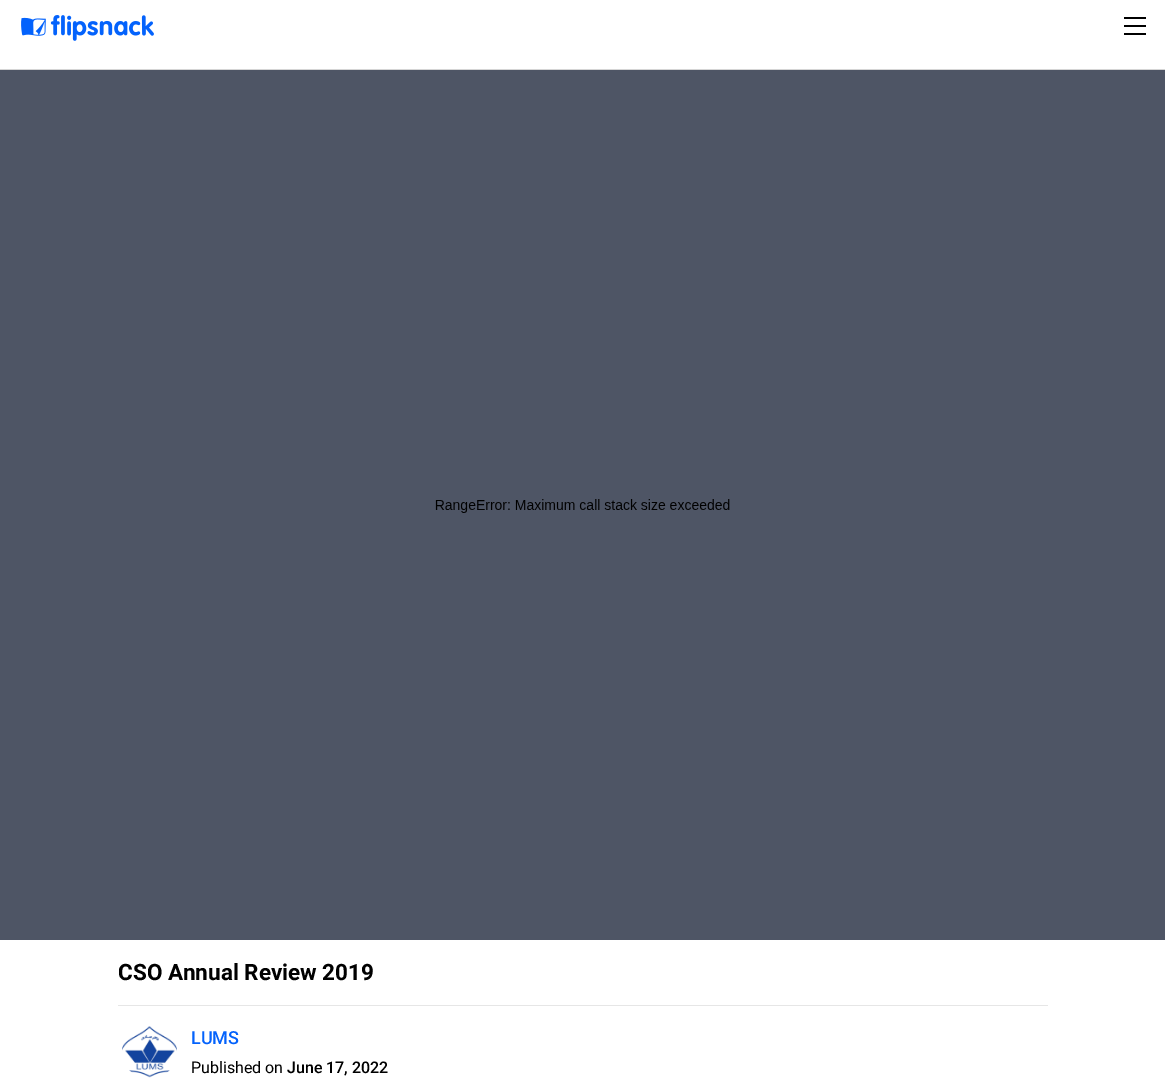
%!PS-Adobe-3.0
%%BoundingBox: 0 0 1165 1084
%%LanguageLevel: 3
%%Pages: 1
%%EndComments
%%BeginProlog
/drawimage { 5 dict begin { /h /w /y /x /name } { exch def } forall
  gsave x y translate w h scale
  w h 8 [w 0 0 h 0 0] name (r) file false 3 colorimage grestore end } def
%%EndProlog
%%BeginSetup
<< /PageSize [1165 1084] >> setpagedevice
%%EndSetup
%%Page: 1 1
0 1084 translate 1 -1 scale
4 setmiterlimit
1 setgray
0 0 1165 1084 rectfill
0.835 setgray
0 69 1165 1 rectfill
(images/1.raw) 21 15 133 26 drawimage
0 setgray
1124 17 22 2 rectfill
1124 25 22 2 rectfill
1124 33 22 2 rectfill
0.306 0.333 0.396 setrgbcolor
0 70 1165 870 rectfill
(images/2.raw) 435 499 295 14 drawimage
0.902 setgray
118 1005 930 1 rectfill
(images/3.raw) 122 1026 55 52 drawimage
/Roboto-Bold [22.5 0 0 -22.5 0 0] selectfont
0 setgray
118 980 moveto (CSO Annual Review 2019) show
/Roboto-Medium [18 0 0 -18 0 0] selectfont
0.012 0.384 0.988 setrgbcolor
191 1044 moveto (LUMS) show
/Roboto-Regular [16 0 0 -16 0 0] selectfont
0 setgray
191 1073 moveto (Published on) show
/Roboto-Medium [16 0 0 -16 0 0] selectfont
287 1073 moveto (June 17, 2022) show
showpage
%%EOF
